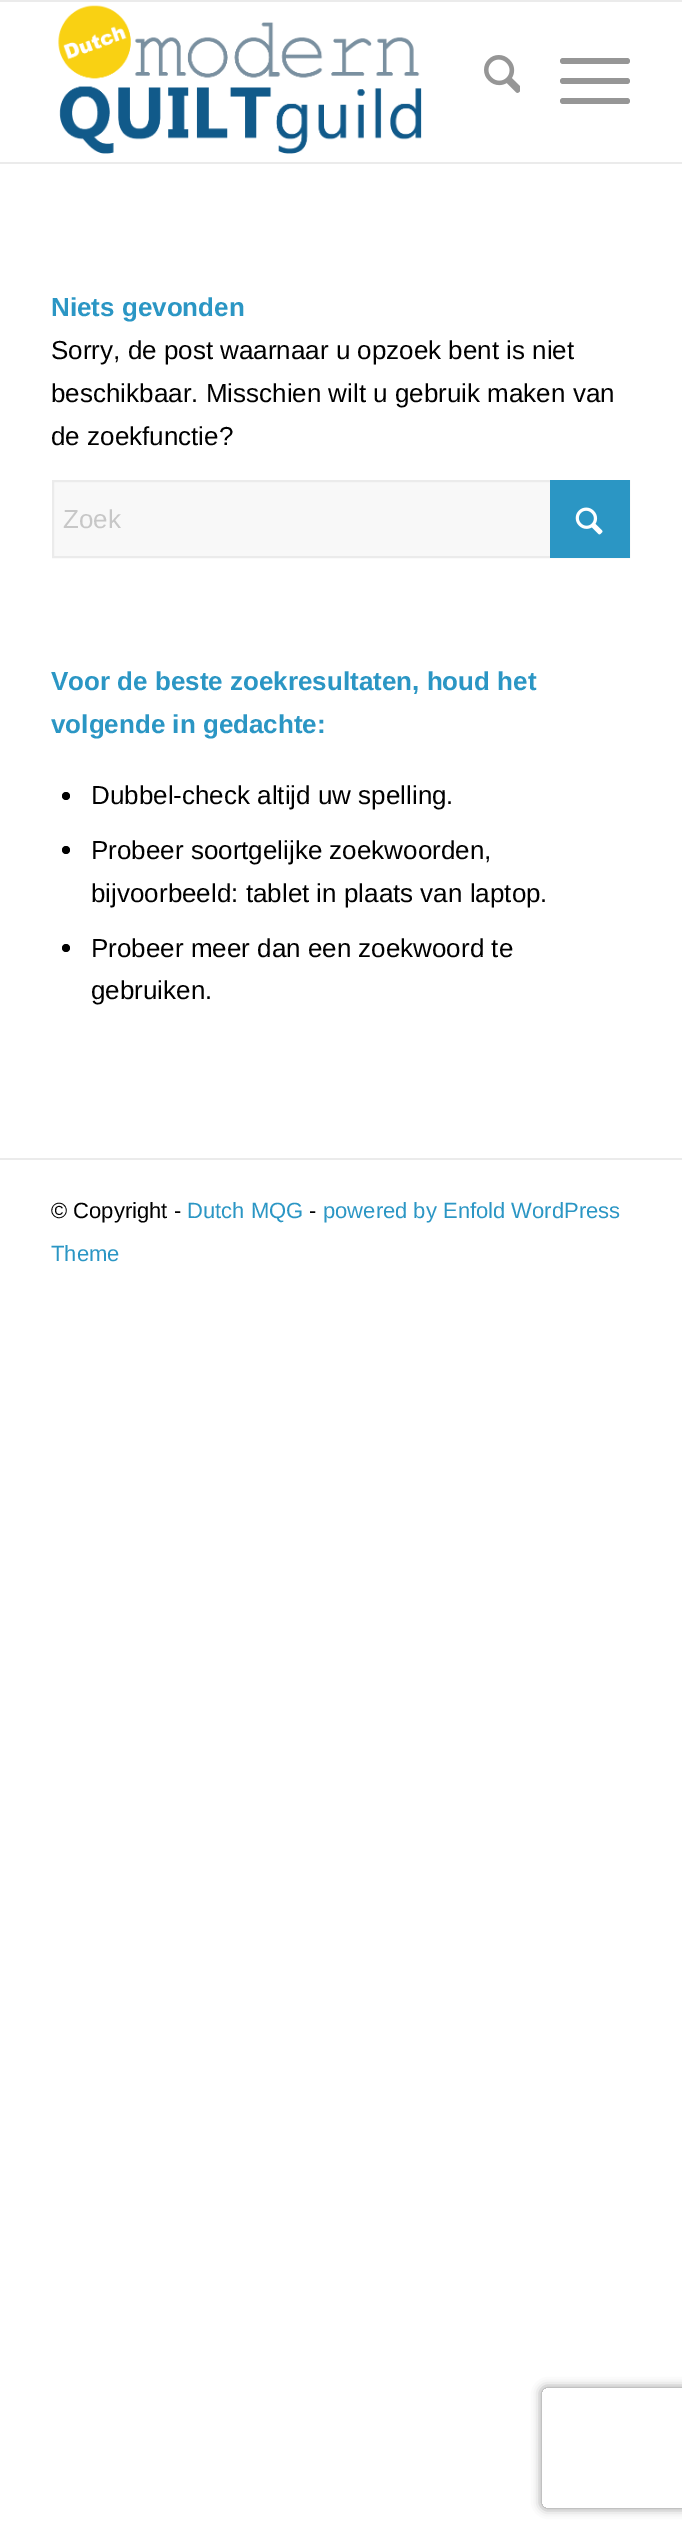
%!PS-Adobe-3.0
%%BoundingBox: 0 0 682 2536
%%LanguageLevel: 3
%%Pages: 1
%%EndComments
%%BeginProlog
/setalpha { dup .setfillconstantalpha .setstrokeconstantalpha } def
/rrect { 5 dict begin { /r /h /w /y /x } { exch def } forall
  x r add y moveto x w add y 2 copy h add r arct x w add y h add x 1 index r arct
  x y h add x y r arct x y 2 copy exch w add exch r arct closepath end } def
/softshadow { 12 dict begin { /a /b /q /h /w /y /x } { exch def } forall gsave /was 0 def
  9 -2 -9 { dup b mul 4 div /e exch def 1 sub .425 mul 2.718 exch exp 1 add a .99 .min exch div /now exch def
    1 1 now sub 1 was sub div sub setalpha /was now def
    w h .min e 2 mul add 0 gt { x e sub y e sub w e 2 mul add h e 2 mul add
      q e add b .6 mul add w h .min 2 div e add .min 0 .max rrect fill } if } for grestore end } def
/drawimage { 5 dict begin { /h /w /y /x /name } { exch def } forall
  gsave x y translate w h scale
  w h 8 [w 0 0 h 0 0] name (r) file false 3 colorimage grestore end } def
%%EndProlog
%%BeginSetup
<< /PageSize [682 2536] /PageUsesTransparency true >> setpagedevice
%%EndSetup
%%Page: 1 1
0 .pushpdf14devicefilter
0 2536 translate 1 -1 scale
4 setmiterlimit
1 setgray
0 0 682 2536 rectfill
0.922 setgray
0 0 682 2 rectfill
0 162 682 2 rectfill
(images/1.raw) 58 5 364 149 drawimage
(images/2.raw) 484 55 36 38 drawimage
0.588 setgray
560 78 70 6 3 rrect fill
560 58 70 6 3 rrect fill
560 98 70 6 3 rrect fill
0.973 setgray
54 482 496 74 rectfill
0.922 setgray
2 setlinewidth
53 481 576 76 rectstroke
0.169 0.588 0.769 setrgbcolor
550 480 80 78 rectfill
(images/3.raw) 575 507 28 28 drawimage
0 setgray
newpath 66 796 4 0 360 arc closepath fill
newpath 66 850 4 0 360 arc closepath fill
newpath 66 948 4 0 360 arc closepath fill
0.922 setgray
0 1158 682 2 rectfill
gsave
newpath 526 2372 moveto 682 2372 lineto 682 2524 lineto 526 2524 lineto closepath 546 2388 moveto 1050 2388 lineto 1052 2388 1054 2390 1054 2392 curveto 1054 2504 lineto 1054 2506 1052 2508 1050 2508 curveto 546 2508 lineto 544 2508 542 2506 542 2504 curveto 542 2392 lineto 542 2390 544 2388 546 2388 curveto closepath eoclip newpath
0.502 setgray
542 2388 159 120 4 5 1 softshadow
grestore
/LiberationSans-Bold [26 0 0 -26 0 0] selectfont
0.169 0.588 0.769 setrgbcolor
51 316 moveto (Niets gevonden) show
/LiberationSans-Regular [26 0 0 -26 0 0] selectfont
0 setgray
51 359 moveto (Sorry, de post waarnaar u opzoek bent is niet) show
51 402 moveto (beschikbaar. Misschien wilt u gebruik maken van) show
51 445 moveto (de zoekfunctie?) show
0.78 setgray
63 528 moveto (Zoek) show
/LiberationSans-Bold [26 0 0 -26 0 0] selectfont
0.169 0.588 0.769 setrgbcolor
51 690 moveto (Voor de beste zoekresultaten, houd het) show
51 733 moveto (volgende in gedachte:) show
/LiberationSans-Regular [26 0 0 -26 0 0] selectfont
0 setgray
91 804 moveto (Dubbel-check altijd uw spelling.) show
91 859 moveto (Probeer soortgelijke zoekwoorden,) show
91 902 moveto (bijvoorbeeld: tablet in plaats van laptop.) show
91 957 moveto (Probeer meer dan een zoekwoord te) show
91 999 moveto (gebruiken.) show
/LiberationSans-Regular [22 0 0 -22 0 0] selectfont
51 1218 moveto (© Copyright -) show
0.169 0.588 0.769 setrgbcolor
187 1218 moveto (Dutch MQG) show
0 setgray
309 1218 moveto (-) show
0.169 0.588 0.769 setrgbcolor
323 1218 moveto (powered by Enfold WordPress) show
51 1261 moveto (Theme) show
.poppdf14devicefilter showpage
%%EOF
